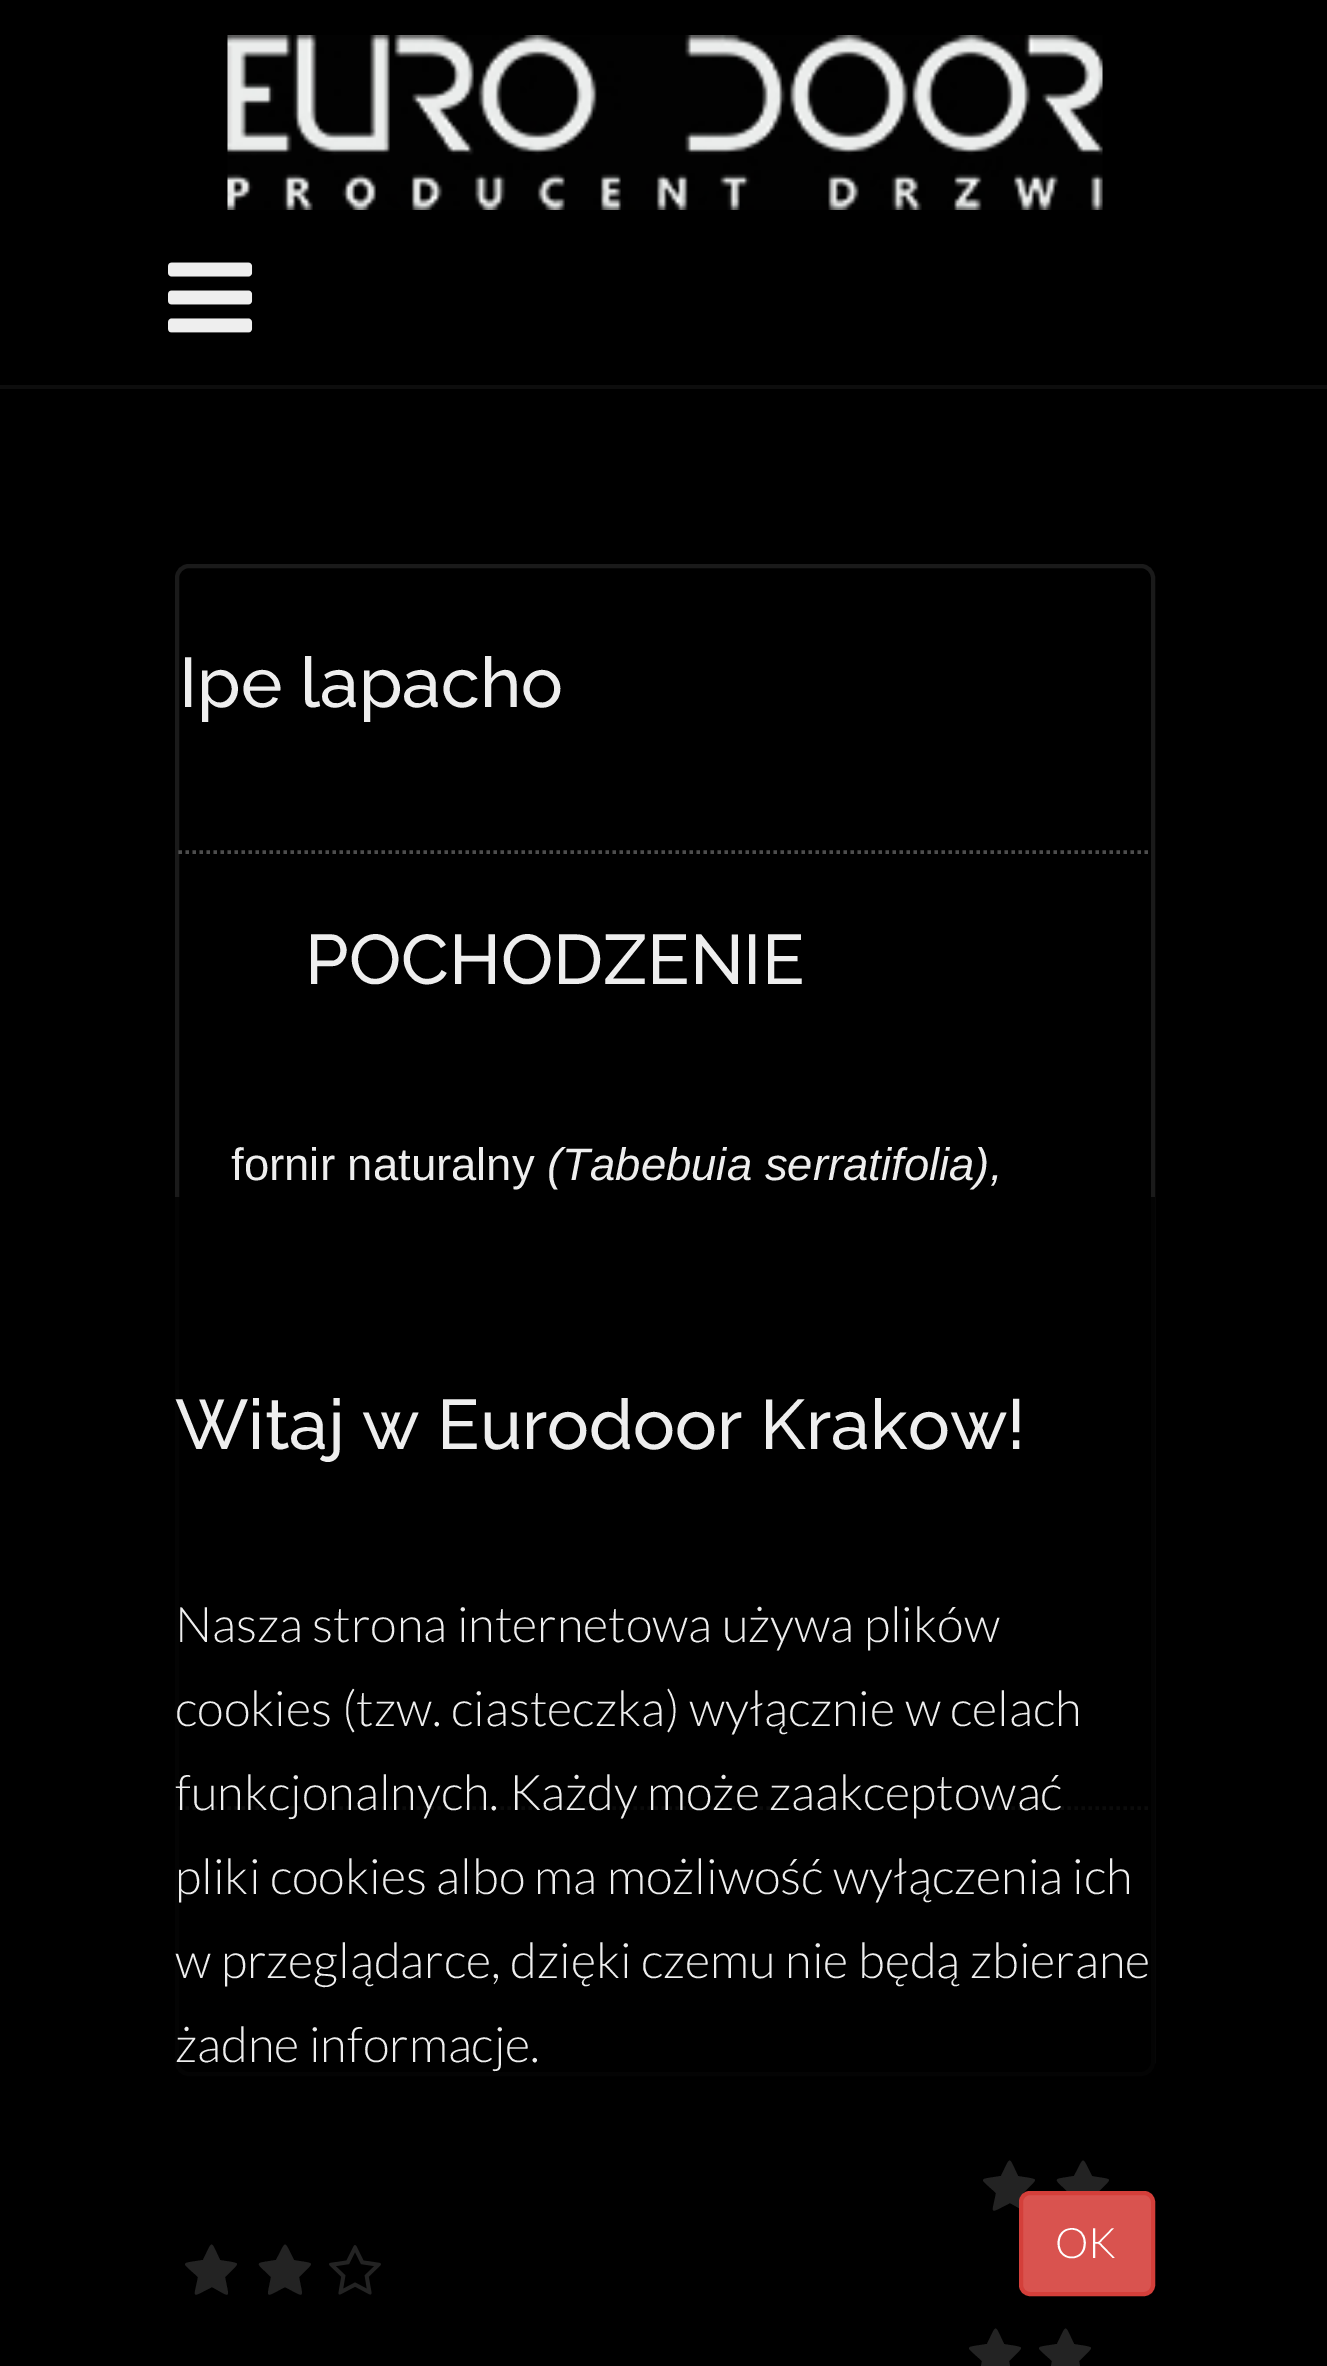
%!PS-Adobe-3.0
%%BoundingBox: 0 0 1327 2366
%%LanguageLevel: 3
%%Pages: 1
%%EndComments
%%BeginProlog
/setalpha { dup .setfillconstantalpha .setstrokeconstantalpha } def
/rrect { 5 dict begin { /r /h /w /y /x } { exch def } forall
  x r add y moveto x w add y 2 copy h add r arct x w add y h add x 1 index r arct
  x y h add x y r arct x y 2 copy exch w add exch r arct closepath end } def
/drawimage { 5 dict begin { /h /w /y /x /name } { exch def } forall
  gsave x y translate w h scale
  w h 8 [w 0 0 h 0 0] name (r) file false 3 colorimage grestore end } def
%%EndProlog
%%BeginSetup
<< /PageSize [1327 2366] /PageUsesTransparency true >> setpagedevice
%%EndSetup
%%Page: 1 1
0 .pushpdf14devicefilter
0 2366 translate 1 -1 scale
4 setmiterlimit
0 setgray
0 0 1327 2366 rectfill
0.051 setgray
0 385 1327 4 rectfill
(images/1.raw) 227 35 876 175 drawimage
(images/2.raw) 168 262 85 71 drawimage
0.102 setgray
4 setlinewidth
177 566 976 1508 12 rrect stroke
0.3 setalpha
1 setgray
3.5 setlinewidth
[3.5 3.5] 0 setdash
newpath 178.5 852 moveto 1151.5 852 lineto stroke
newpath 178.5 1808 moveto 1151.5 1808 lineto stroke
1 setalpha
0.933 setgray
newpath 1035 2180 moveto 1035 2182 1025 2191 1023 2193 curveto 1027 2215 1030 2214 1010 2203 curveto 988 2214 992 2215 996 2193 curveto 979 2177 977 2180 1001 2176 curveto 1011 2156 1008 2155 1018 2176 curveto 1021 2177 1035 2178 1035 2180 curveto closepath fill
newpath 1109 2180 moveto 1109 2182 1099 2191 1097 2193 curveto 1101 2215 1104 2214 1083 2203 curveto 1062 2214 1065 2215 1069 2193 curveto 1053 2177 1051 2180 1074 2176 curveto 1085 2156 1081 2155 1092 2176 curveto 1094 2177 1109 2178 1109 2180 curveto closepath fill
newpath 237 2264 moveto 237 2266 227 2275 225 2277 curveto 229 2299 232 2298 212 2287 curveto 190 2298 194 2299 198 2277 curveto 181 2261 179 2264 203 2260 curveto 213 2240 210 2239 220 2260 curveto 223 2261 237 2262 237 2264 curveto closepath fill
newpath 311 2264 moveto 311 2266 301 2275 299 2277 curveto 303 2299 306 2298 285 2287 curveto 264 2298 267 2299 271 2277 curveto 255 2261 253 2264 276 2260 curveto 287 2240 283 2239 294 2260 curveto 296 2261 311 2262 311 2264 curveto closepath fill
(images/3.raw) 329 2245 52 50 drawimage
newpath 1021 2348 moveto 1021 2350 1011 2359 1009 2361 curveto 1013 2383 1016 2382 996 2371 curveto 974 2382 978 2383 982 2361 curveto 965 2345 963 2348 987 2344 curveto 997 2324 994 2323 1004 2344 curveto 1007 2345 1021 2346 1021 2348 curveto closepath fill
newpath 1091 2348 moveto 1091 2350 1081 2359 1079 2361 curveto 1083 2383 1086 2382 1066 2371 curveto 1044 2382 1048 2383 1052 2361 curveto 1035 2345 1033 2348 1057 2344 curveto 1067 2324 1064 2323 1074 2344 curveto 1077 2345 1091 2346 1091 2348 curveto closepath fill
0.85 setalpha
0 setgray
175 1197 980 1169 rectfill
1 setalpha
0.851 0.325 0.31 setrgbcolor
1021 2193 132 101 9 rrect gsave fill grestore
0.831 0.247 0.227 setrgbcolor
4 setlinewidth
[] 0 setdash
stroke
/Raleway-Medium [70 0 0 -70 0 0] selectfont
0.933 setgray
179 707 moveto (Ipe lapacho) show
305 984 moveto (POCHODZENIE) show
/LiberationSans-Regular [45.5 0 0 -45.5 0 0] selectfont
231 1180 moveto (fornir naturalny) show
/LiberationSans-Italic [45.5 0 0 -45.5 0 0] selectfont
547 1180 moveto (\(Tabebuia serratifolia\),) show
/Raleway-Medium [70 0 0 -70 0 0] selectfont
175 1449 moveto (Witaj w Eurodoor Krakow!) show
/Lato-Light [49 0 0 -49 0 0] selectfont
175 1642 moveto (Nasza strona internetowa używa plików) show
175 1726 moveto (cookies \(tzw. ciasteczka\) wyłącznie w celach) show
175 1810 moveto (funkcjonalnych. Każdy może zaakceptować) show
175 1894 moveto (pliki cookies albo ma możliwość wyłączenia ich) show
175 1978 moveto (w przeglądarce, dzięki czemu nie będą zbierane) show
175 2062 moveto (żadne informacje.) show
/Lato-Light [42 0 0 -42 0 0] selectfont
1 setgray
1055 2258 moveto (OK) show
.poppdf14devicefilter showpage
%%EOF
